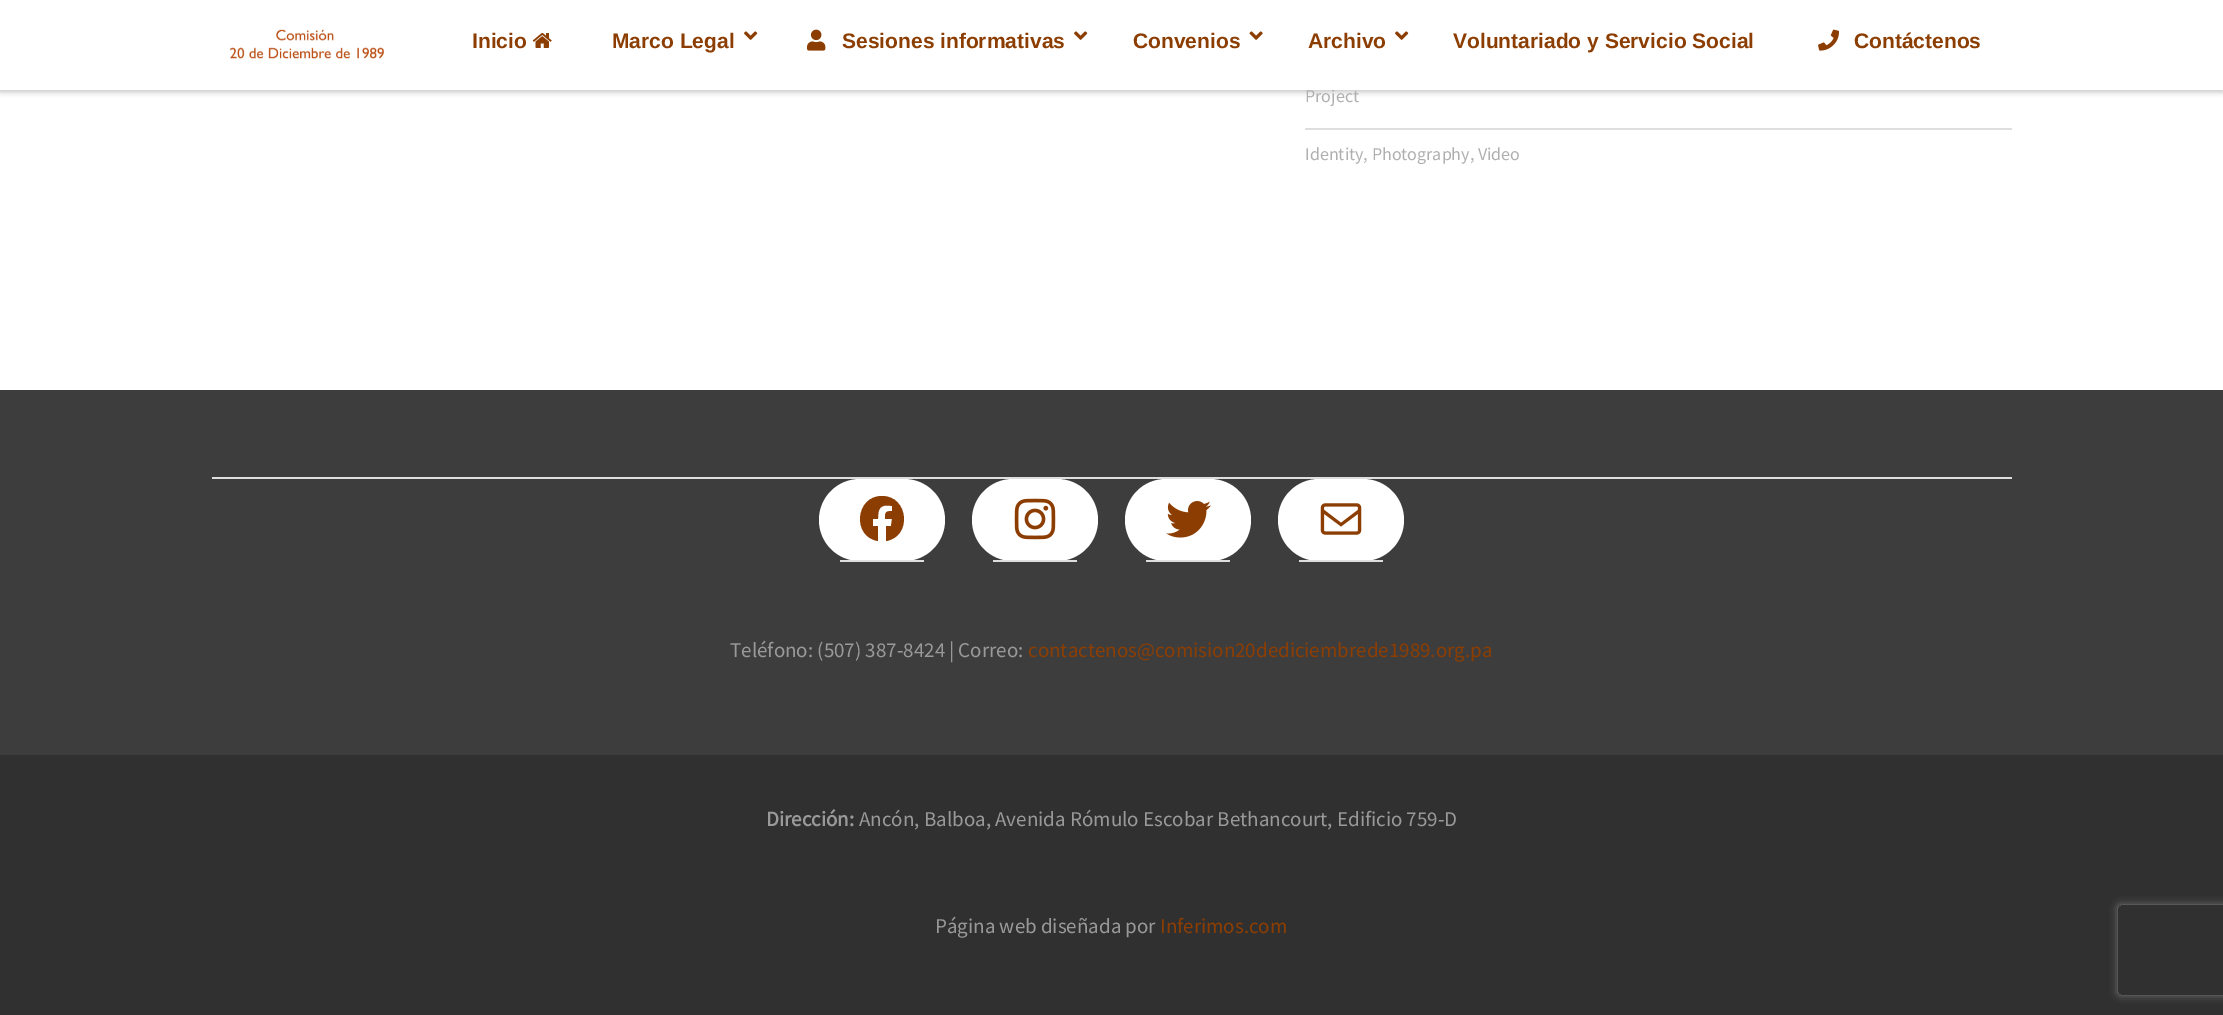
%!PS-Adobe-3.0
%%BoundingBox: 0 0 2223 1015
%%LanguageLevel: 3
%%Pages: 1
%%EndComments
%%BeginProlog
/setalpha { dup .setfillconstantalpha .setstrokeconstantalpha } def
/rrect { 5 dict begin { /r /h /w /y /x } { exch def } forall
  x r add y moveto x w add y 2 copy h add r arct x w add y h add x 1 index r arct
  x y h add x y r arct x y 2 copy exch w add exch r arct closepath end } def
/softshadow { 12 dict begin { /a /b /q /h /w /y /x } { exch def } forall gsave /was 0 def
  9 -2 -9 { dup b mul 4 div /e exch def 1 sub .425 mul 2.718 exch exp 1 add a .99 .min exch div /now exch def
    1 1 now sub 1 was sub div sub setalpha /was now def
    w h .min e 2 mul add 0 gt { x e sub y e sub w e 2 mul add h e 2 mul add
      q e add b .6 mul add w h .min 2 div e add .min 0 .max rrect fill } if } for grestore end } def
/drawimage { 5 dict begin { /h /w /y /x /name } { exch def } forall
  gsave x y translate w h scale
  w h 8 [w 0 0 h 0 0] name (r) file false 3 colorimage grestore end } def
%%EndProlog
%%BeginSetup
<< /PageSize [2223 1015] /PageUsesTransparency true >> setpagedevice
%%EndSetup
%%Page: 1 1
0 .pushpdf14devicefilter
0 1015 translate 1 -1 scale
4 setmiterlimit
1 setgray
0 0 2223 1015 rectfill
0 setgray
0 2 2223 90 0 3 0.24 softshadow
0.871 setgray
1305 128 707 2 rectfill
0.239 setgray
0 390 2223 365 rectfill
0.871 setgray
212 477 1800 2 rectfill
1 setgray
819 479 126 82 41 rrect fill
0.871 setgray
840 560 84 2 rectfill
0.549 0.239 0.008 setrgbcolor
newpath 882 496 moveto 855 496 852 537 878 541 curveto 878 526 lineto 873 526 lineto 873 519 lineto 878 519 lineto 878 508 880 504 892 506 curveto 892 511 lineto 885 511 885 513 885 519 curveto 892 519 lineto 891 526 lineto 886 526 lineto 886 541 lineto 912 537 909 496 882 496 curveto closepath fill
1 setgray
972 479 126 82 41 rrect fill
0.871 setgray
993 560 84 2 rectfill
(images/7.raw) 1014 498 42 42 drawimage
1 setgray
1125 479 126 82 41 rrect fill
0.871 setgray
1146 560 84 2 rectfill
(images/8.raw) 1166 501 45 37 drawimage
1 setgray
1278 479 126 82 41 rrect fill
0.871 setgray
1299 560 84 2 rectfill
(images/9.raw) 1320 503 42 32 drawimage
0.188 setgray
0 755 2223 260 rectfill
gsave
newpath 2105 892 moveto 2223 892 lineto 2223 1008 lineto 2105 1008 lineto closepath 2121 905 moveto 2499 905 lineto 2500.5 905 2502 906.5 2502 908 curveto 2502 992 lineto 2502 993.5 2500.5 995 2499 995 curveto 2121 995 lineto 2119.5 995 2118 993.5 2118 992 curveto 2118 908 lineto 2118 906.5 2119.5 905 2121 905 curveto closepath eoclip newpath
0.502 setgray
2118 905 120 90 3 4 1 softshadow
grestore
/SourceSansPro-Regular [18 0 0 -18 0 0] selectfont
0.686 setgray
1305 102 moveto (Project) show
1 setgray
0 0 2223 90 rectfill
(images/1.raw) 230 29 154 30 drawimage
/LiberationSans-Bold [21 0 0 -21 0 0] selectfont
0.549 0.239 0.008 setrgbcolor
1854 48 moveto (Contáctenos) show
(images/6.raw) 1818 29 21 22 drawimage
1453 48 moveto (Voluntariado y Servicio Social) show
(images/3.raw) 1395 31 14 9 drawimage
1308 48 moveto (Archivo) show
(images/5.raw) 1249 31 14 9 drawimage
1133 48 moveto (Convenios) show
(images/3.raw) 1074 31 14 9 drawimage
842 48 moveto (Sesiones informativas) show
(images/4.raw) 807 29 19 22 drawimage
(images/3.raw) 744 31 14 9 drawimage
612 48 moveto (Marco Legal) show
(images/2.raw) 532 33 20 15 drawimage
472 48 moveto (Inicio) show
/SourceSansPro-Regular [18 0 0 -18 0 0] selectfont
0.686 setgray
1305 160 moveto (Identity, Photography, Video) show
/SourceSansPro-Regular [21 0 0 -21 0 0] selectfont
0.6 setgray
730 657 moveto (Teléfono: \(507\) 387-8424 | Correo:) show
0.549 0.239 0.008 setrgbcolor
1028 657 moveto (contactenos@comision20dediciembrede1989.org.pa) show
/SourceSansPro-Bold [21 0 0 -21 0 0] selectfont
0.6 setgray
766 826 moveto (Dirección:) show
/SourceSansPro-Regular [21 0 0 -21 0 0] selectfont
859 826 moveto (Ancón, Balboa, Avenida Rómulo Escobar Bethancourt, Edificio 759-D) show
935 933 moveto (Página web diseñada por) show
0.549 0.239 0.008 setrgbcolor
1160 933 moveto (Inferimos.com) show
.poppdf14devicefilter showpage
%%EOF
